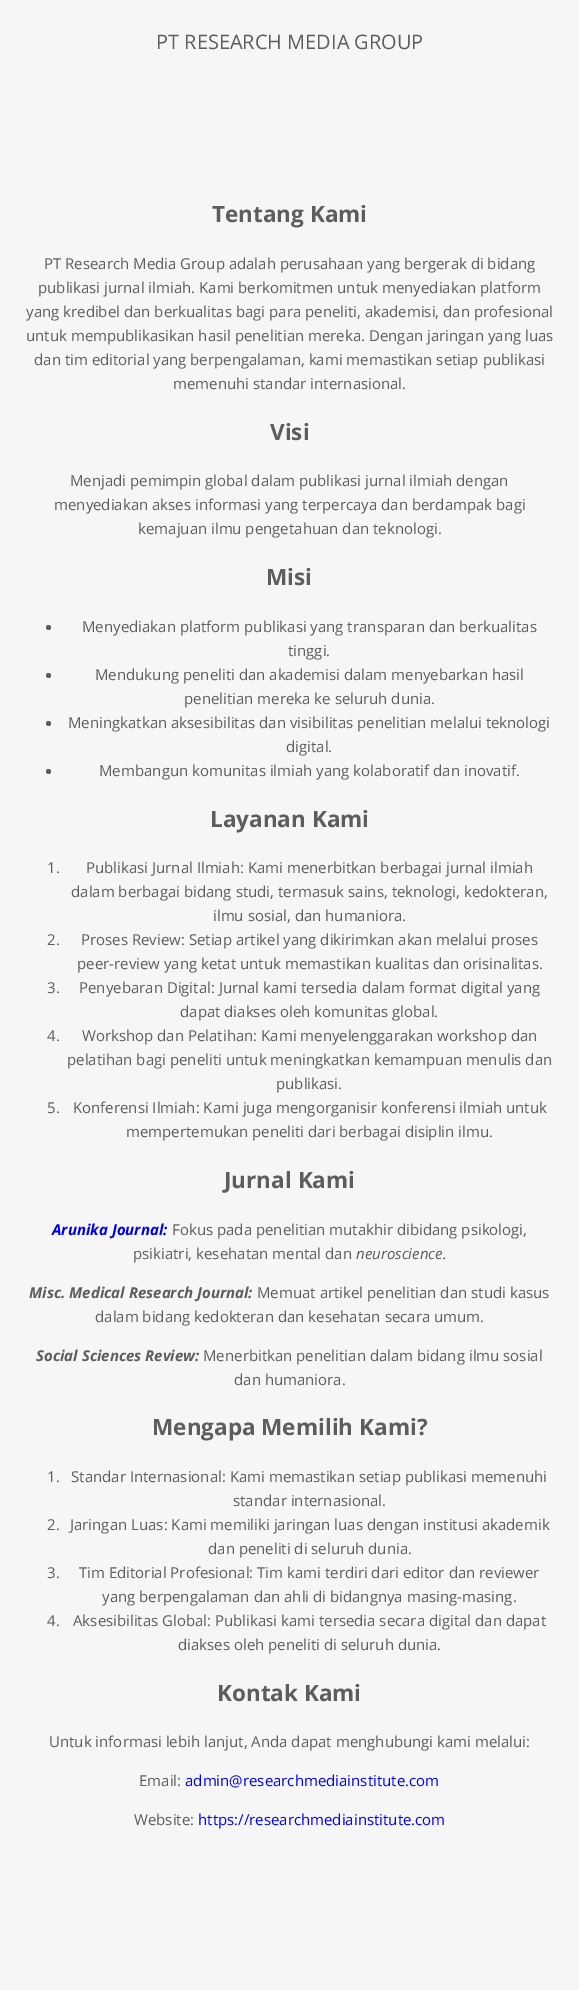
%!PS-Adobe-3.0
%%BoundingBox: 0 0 579 1990
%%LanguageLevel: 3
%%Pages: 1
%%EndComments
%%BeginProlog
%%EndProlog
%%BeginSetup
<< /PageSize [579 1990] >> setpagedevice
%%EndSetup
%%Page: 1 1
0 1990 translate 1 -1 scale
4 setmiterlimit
0.965 setgray
0 0 579 1990 rectfill
0.365 setgray
newpath 48.5 627.5 2.5 0 360 arc closepath fill
newpath 48.5 675.5 2.5 0 360 arc closepath fill
newpath 48.5 723.5 2.5 0 360 arc closepath fill
newpath 48.5 771.5 2.5 0 360 arc closepath fill
/OpenSans-Regular [20 0 0 -20 0 0] selectfont
156 49 moveto (PT RESEARCH MEDIA GROUP) show
/OpenSans-Bold [22.5 0 0 -22.5 0 0] selectfont
212 222 moveto (Tentang Kami) show
/OpenSans-Regular [15 0 0 -15 0 0] selectfont
44 269 moveto (PT Research Media Group adalah perusahaan yang bergerak di bidang) show
38 293 moveto (publikasi jurnal ilmiah. Kami berkomitmen untuk menyediakan platform) show
26 317 moveto (yang kredibel dan berkualitas bagi para peneliti, akademisi, dan profesional) show
26 341 moveto (untuk mempublikasikan hasil penelitian mereka. Dengan jaringan yang luas) show
34 365 moveto (dan tim editorial yang berpengalaman, kami memastikan setiap publikasi) show
173 389 moveto (memenuhi standar internasional.) show
/OpenSans-Bold [22.5 0 0 -22.5 0 0] selectfont
270 440 moveto (Visi) show
/OpenSans-Regular [15 0 0 -15 0 0] selectfont
70 486 moveto (Menjadi pemimpin global dalam publikasi jurnal ilmiah dengan) show
54 510 moveto (menyediakan akses informasi yang terpercaya dan berdampak bagi) show
138 534 moveto (kemajuan ilmu pengetahuan dan teknologi.) show
/OpenSans-Bold [22.5 0 0 -22.5 0 0] selectfont
266 585 moveto (Misi) show
/OpenSans-Regular [15 0 0 -15 0 0] selectfont
82 632 moveto (Menyediakan platform publikasi yang transparan dan berkualitas) show
288 656 moveto (tinggi.) show
95 680 moveto (Mendukung peneliti dan akademisi dalam menyebarkan hasil) show
184 704 moveto (penelitian mereka ke seluruh dunia.) show
68 728 moveto (Meningkatkan aksesibilitas dan visibilitas penelitian melalui teknologi) show
286 752 moveto (digital.) show
99 776 moveto (Membangun komunitas ilmiah yang kolaboratif dan inovatif.) show
/OpenSans-Bold [22.5 0 0 -22.5 0 0] selectfont
210 827 moveto (Layanan Kami) show
/OpenSans-Regular [15 0 0 -15 0 0] selectfont
47 873 moveto (1.) show
86 873 moveto (Publikasi Jurnal Ilmiah: Kami menerbitkan berbagai jurnal ilmiah) show
71 897 moveto (dalam berbagai bidang studi, termasuk sains, teknologi, kedokteran,) show
213 921 moveto (ilmu sosial, dan humaniora.) show
47 945 moveto (2.) show
81 945 moveto (Proses Review: Setiap artikel yang dikirimkan akan melalui proses) show
77 969 moveto (peer-review yang ketat untuk memastikan kualitas dan orisinalitas.) show
47 993 moveto (3.) show
79 993 moveto (Penyebaran Digital: Jurnal kami tersedia dalam format digital yang) show
180 1017 moveto (dapat diakses oleh komunitas global.) show
47 1041 moveto (4.) show
82 1041 moveto (Workshop dan Pelatihan: Kami menyelenggarakan workshop dan) show
67 1065 moveto (pelatihan bagi peneliti untuk meningkatkan kemampuan menulis dan) show
276 1089 moveto (publikasi.) show
47 1113 moveto (5.) show
73 1113 moveto (Konferensi Ilmiah: Kami juga mengorganisir konferensi ilmiah untuk) show
126 1137 moveto (mempertemukan peneliti dari berbagai disiplin ilmu.) show
/OpenSans-Bold [22.5 0 0 -22.5 0 0] selectfont
224 1188 moveto (Jurnal Kami) show
/OpenSans-BoldItalic [15 0 0 -15 0 0] selectfont
0 0 0.933 setrgbcolor
52 1235 moveto (Arunika Journal:) show
/OpenSans-Regular [15 0 0 -15 0 0] selectfont
0.365 setgray
172 1235 moveto (Fokus pada penelitian mutakhir dibidang psikologi,) show
133 1259 moveto (psikiatri, kesehatan mental dan) show
/OpenSans-Italic [15 0 0 -15 0 0] selectfont
356 1259 moveto (neuroscience.) show
/OpenSans-BoldItalic [15 0 0 -15 0 0] selectfont
29 1298 moveto (Misc. Medical Research Journal:) show
/OpenSans-Regular [15 0 0 -15 0 0] selectfont
257 1298 moveto (Memuat artikel penelitian dan studi kasus) show
95 1322 moveto (dalam bidang kedokteran dan kesehatan secara umum.) show
/OpenSans-BoldItalic [15 0 0 -15 0 0] selectfont
36 1361 moveto (Social Sciences Review:) show
/OpenSans-Regular [15 0 0 -15 0 0] selectfont
203 1361 moveto (Menerbitkan penelitian dalam bidang ilmu sosial) show
234 1385 moveto (dan humaniora.) show
/OpenSans-Bold [22.5 0 0 -22.5 0 0] selectfont
152 1435 moveto (Mengapa Memilih Kami?) show
/OpenSans-Regular [15 0 0 -15 0 0] selectfont
47 1482 moveto (1.) show
71 1482 moveto (Standar Internasional: Kami memastikan setiap publikasi memenuhi) show
233 1506 moveto (standar internasional.) show
47 1530 moveto (2.) show
70 1530 moveto (Jaringan Luas: Kami memiliki jaringan luas dengan institusi akademik) show
208 1554 moveto (dan peneliti di seluruh dunia.) show
47 1578 moveto (3.) show
79 1578 moveto (Tim Editorial Profesional: Tim kami terdiri dari editor dan reviewer) show
102 1602 moveto (yang berpengalaman dan ahli di bidangnya masing-masing.) show
47 1626 moveto (4.) show
73 1626 moveto (Aksesibilitas Global: Publikasi kami tersedia secara digital dan dapat) show
178 1650 moveto (diakses oleh peneliti di seluruh dunia.) show
/OpenSans-Bold [22.5 0 0 -22.5 0 0] selectfont
217 1701 moveto (Kontak Kami) show
/OpenSans-Regular [15 0 0 -15 0 0] selectfont
49 1747 moveto (Untuk informasi lebih lanjut, Anda dapat menghubungi kami melalui:) show
139 1786 moveto (Email:) show
0 0 0.933 setrgbcolor
185 1786 moveto (admin@researchmediainstitute.com) show
0.365 setgray
134 1825 moveto (Website:) show
0 0 0.933 setrgbcolor
198 1825 moveto (https://researchmediainstitute.com) show
showpage
%%EOF
